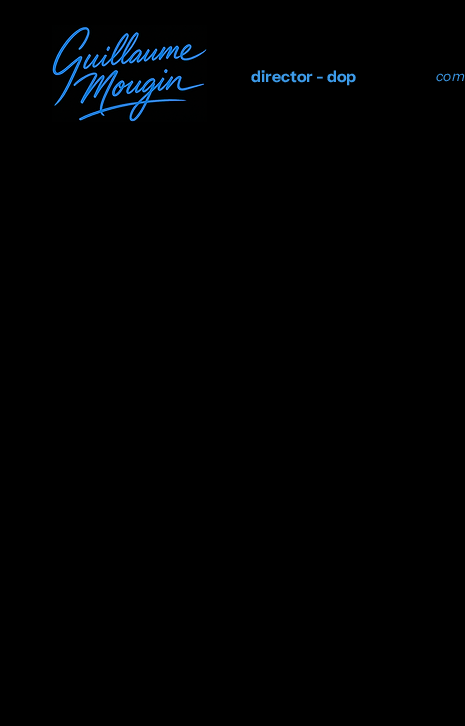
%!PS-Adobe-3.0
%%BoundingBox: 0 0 465 726
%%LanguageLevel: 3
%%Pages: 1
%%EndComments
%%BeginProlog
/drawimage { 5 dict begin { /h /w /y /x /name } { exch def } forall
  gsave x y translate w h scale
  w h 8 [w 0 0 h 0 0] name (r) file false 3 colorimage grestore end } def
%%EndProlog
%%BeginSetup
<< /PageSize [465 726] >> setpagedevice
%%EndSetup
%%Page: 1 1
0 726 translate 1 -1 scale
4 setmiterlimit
0 setgray
0 0 465 726 rectfill
(images/1.raw) 52 25 155 97 drawimage
/InstrumentSans-Bold [16 0 0 -16 0 0] selectfont
0.239 0.608 0.914 setrgbcolor
251 82 moveto (director - dop) show
/InstrumentSans-Italic [14 0 0 -14 0 0] selectfont
436 81 moveto (com) show
showpage
%%EOF
